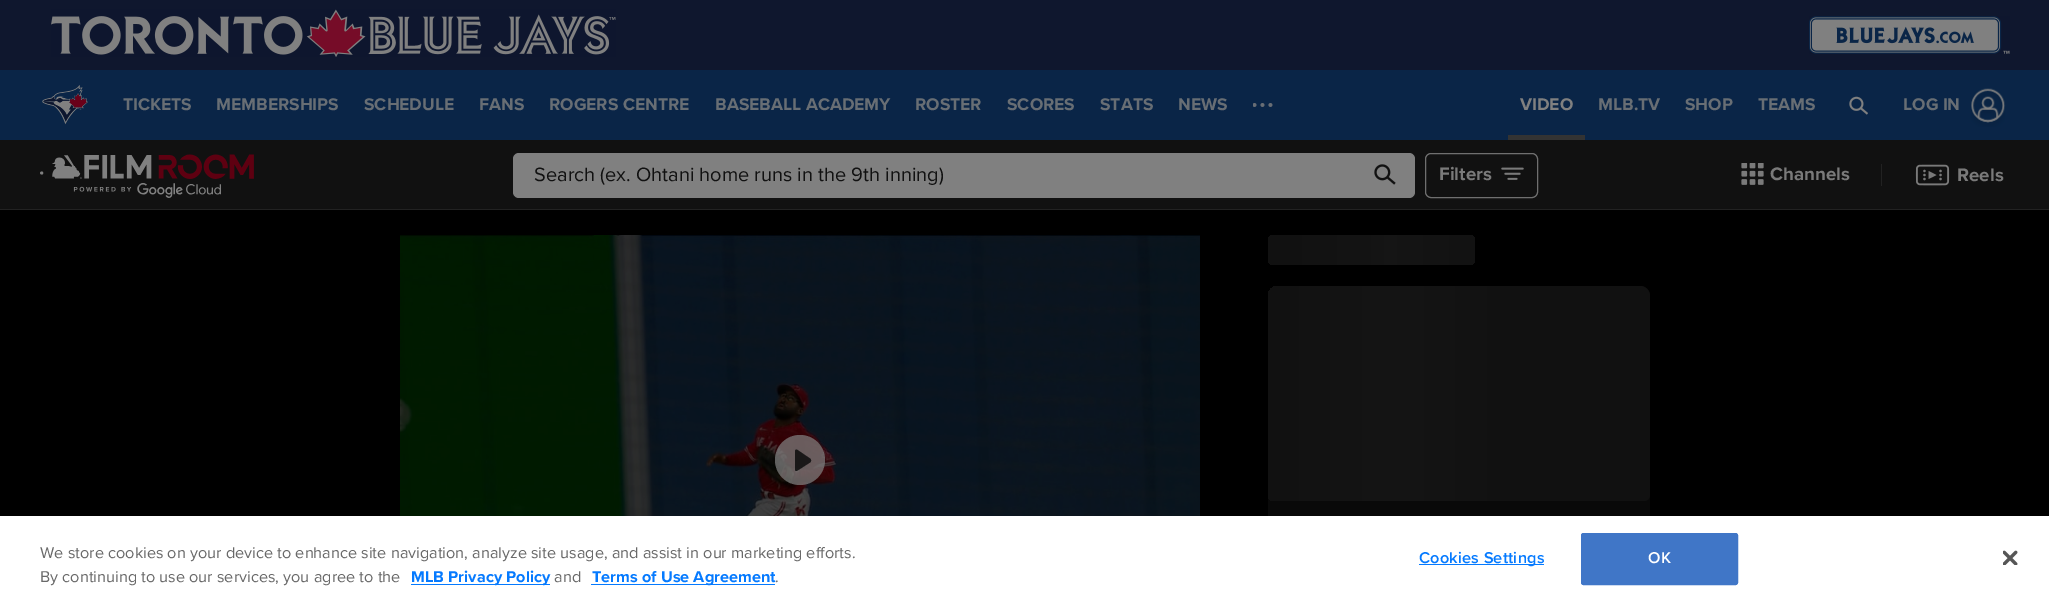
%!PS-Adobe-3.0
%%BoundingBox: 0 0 2049 604
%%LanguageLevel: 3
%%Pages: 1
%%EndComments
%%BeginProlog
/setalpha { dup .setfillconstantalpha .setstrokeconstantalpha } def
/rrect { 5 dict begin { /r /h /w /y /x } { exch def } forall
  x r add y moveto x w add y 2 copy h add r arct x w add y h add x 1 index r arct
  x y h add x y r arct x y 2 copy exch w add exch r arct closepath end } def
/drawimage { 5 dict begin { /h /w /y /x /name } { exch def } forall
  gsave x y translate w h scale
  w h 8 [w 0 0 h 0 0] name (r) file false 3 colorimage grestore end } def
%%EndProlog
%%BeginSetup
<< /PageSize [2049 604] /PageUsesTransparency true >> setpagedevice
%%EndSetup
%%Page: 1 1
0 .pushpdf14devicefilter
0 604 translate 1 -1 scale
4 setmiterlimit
0 setgray
0 0 2049 604 rectfill
0.039 0.145 0.278 setrgbcolor
0 70 2049 70 rectfill
0.059 0.09 0.18 setrgbcolor
0 0 2049 70 rectfill
(images/1.raw) 51 9 565 48 drawimage
(images/2.raw) 1809 16 201 38 drawimage
(images/3.raw) 42 85 46 40 drawimage
(images/4.raw) 1253 103 20 4 drawimage
0.2 setgray
1508 135 77 5 rectfill
(images/5.raw) 1849 96 19 19 drawimage
(images/6.raw) 1971 88 35 39 drawimage
0.067 setgray
0 140 2049 69 rectfill
0.133 setgray
0 209 2049 1 rectfill
(images/7.raw) 40 154 214 44 drawimage
0.502 setgray
513 153 902 45 6 rrect fill
(images/8.raw) 1374 164 22 21 drawimage
0.435 setgray
1425.5 153.5 112 44 5.5 rrect stroke
(images/9.raw) 1501 167 23 13 drawimage
(images/10.raw) 1741 163 23 22 drawimage
0.133 setgray
1881 164 1 22 rectfill
(images/11.raw) 1915 164 35 22 drawimage
(images/12.raw) 400 235 800 281 drawimage
0.72 setalpha
0.502 setgray
newpath 800 460 25 0 360 arc closepath fill
0.9 setalpha
0.067 setgray
newpath 810 458.5 moveto 811.5 459.5 811.5 461.5 810 462.5 curveto 797.5 470.5 lineto 796 471.5 795 471 795 469 curveto 795 451.5 lineto 795 450 796 449 797.5 450 curveto closepath eofill
1 setalpha
gsave 1268 235 207 30 6 rrect clip newpath
<< /ShadingType 2 /ColorSpace /DeviceRGB /Coords [1268 250 1518 250] /Extend [true true] /Function << /FunctionType 3 /Domain [0 1] /Functions [<< /FunctionType 2 /Domain [0 1] /C0 [0.067 0.067 0.067] /C1 [0.082 0.082 0.082] /N 1 >> << /FunctionType 2 /Domain [0 1] /C0 [0.082 0.082 0.082] /C1 [0.067 0.067 0.067] /N 1 >>] /Bounds [0.5] /Encode [0 1 0 1] >> >> shfill grestore
0.035 setgray
1268 286 382 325 10 rrect fill
0.067 setgray
newpath 1278 286 moveto 1640 286 lineto 1645.5 286 1650 290.5 1650 296 curveto 1650 495 lineto 1650 498.5 1647.5 501 1644 501 curveto 1274 501 lineto 1270.5 501 1268 498.5 1268 495 curveto 1268 296 lineto 1268 290.5 1272.5 286 1278 286 curveto closepath fill
gsave
1268 286 382 215 6 rrect clip newpath
gsave newpath 1278 286 moveto 1518 286 lineto 1518 501 lineto 1274 501 lineto 1270.5 501 1268 498.5 1268 495 curveto 1268 296 lineto 1268 290.5 1272.5 286 1278 286 curveto closepath clip newpath
<< /ShadingType 2 /ColorSpace /DeviceRGB /Coords [1268 394 1518 394] /Extend [true true] /Function << /FunctionType 3 /Domain [0 1] /Functions [<< /FunctionType 2 /Domain [0 1] /C0 [0.067 0.067 0.067] /C1 [0.082 0.082 0.082] /N 1 >> << /FunctionType 2 /Domain [0 1] /C0 [0.082 0.082 0.082] /C1 [0.067 0.067 0.067] /N 1 >>] /Bounds [0.5] /Encode [0 1 0 1] >> >> shfill grestore
grestore
1 setgray
0 516 2049 88 rectfill
0.02 0.478 1 setrgbcolor
411 584 139 1 rectfill
591 584 184 1 rectfill
1419 564 125 1 rectfill
0.251 0.463 0.78 setrgbcolor
1581.5 533.5 156 51 2 rrect gsave fill grestore
stroke
(images/13.raw) 2003 550 15 15 drawimage
/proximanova-Bold [17.5 0 0 -17.5 0 0] selectfont
0.408 0.431 0.455 setrgbcolor
123 110 moveto (TICKETS) show
216 110 moveto (MEMBERSHIPS) show
364 110 moveto (SCHEDULE) show
479 110 moveto (FANS) show
549 110 moveto (ROGERS CENTRE) show
715 110 moveto (BASEBALL ACADEMY) show
915 110 moveto (ROSTER) show
1007 110 moveto (SCORES) show
1100 110 moveto (STATS) show
1178 110 moveto (NEWS) show
0.502 setgray
1520 110 moveto (VIDEO) show
0.408 0.431 0.455 setrgbcolor
1598 110 moveto (MLB.TV) show
1685 110 moveto (SHOP) show
1758 110 moveto (TEAMS) show
1903 110 moveto (LOG IN) show
/proximanova-Regular [20 0 0 -20 0 0] selectfont
0.067 setgray
534 181 moveto (Search \(ex. Ohtani home runs in the 9th inning\)) show
/proximanova-Bold [18.75 0 0 -18.75 0 0] selectfont
0.478 setgray
1439 180 moveto (Filters) show
1770 180 moveto (Channels) show
1957 181 moveto (Reels) show
/proximanova-Regular [16.25 0 0 -16.25 0 0] selectfont
0.412 setgray
40 558 moveto (We store cookies on your device to enhance site navigation, analyze site usage, and assist in our marketing efforts.) show
40 582 moveto (By continuing to use our services, you agree to the) show
/proximanova-Bold [16.25 0 0 -16.25 0 0] selectfont
0.02 0.478 1 setrgbcolor
411 582 moveto (MLB Privacy Policy) show
/proximanova-Regular [16.25 0 0 -16.25 0 0] selectfont
0.412 setgray
554 582 moveto (and) show
/proximanova-Bold [16.25 0 0 -16.25 0 0] selectfont
0.02 0.478 1 setrgbcolor
592 582 moveto (Terms of Use Agreement) show
/proximanova-Regular [16.25 0 0 -16.25 0 0] selectfont
0.412 setgray
775 582 moveto (.) show
/ProximaNova-SemiBold [16.25 0 0 -16.25 0 0] selectfont
0.02 0.478 1 setrgbcolor
1419 563 moveto 0.2 0 (Cookies Settings) ashow
1 setgray
1648 563 moveto 0.2 0 (OK) ashow
.poppdf14devicefilter showpage
%%EOF
